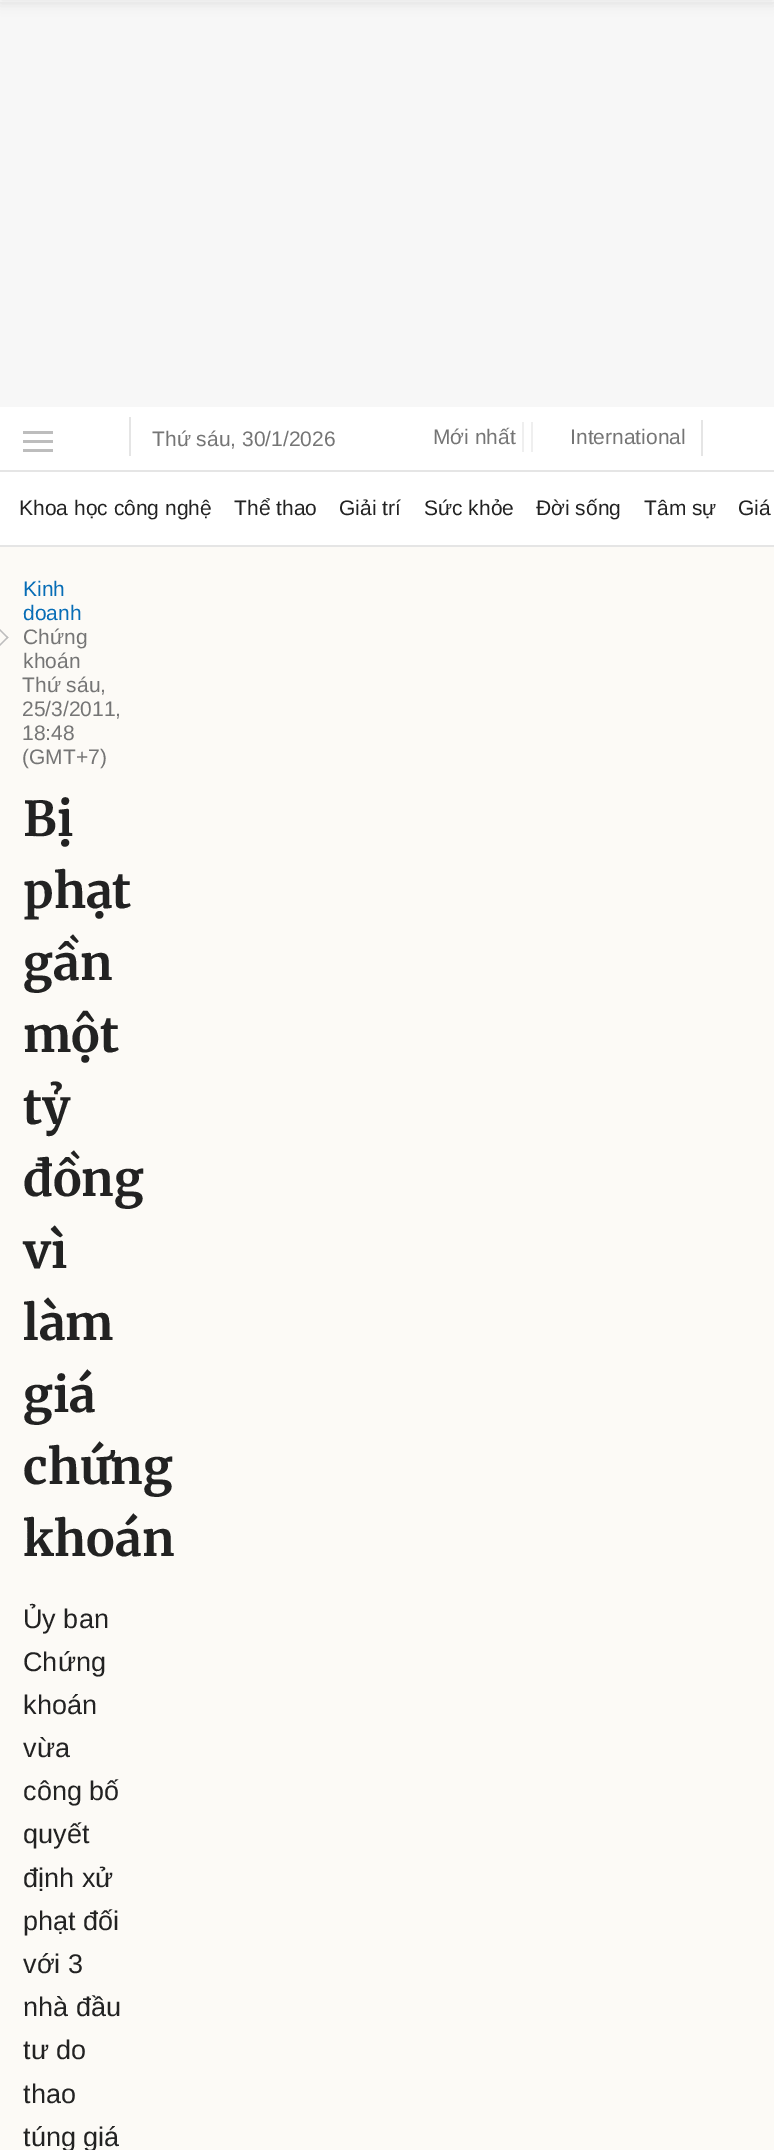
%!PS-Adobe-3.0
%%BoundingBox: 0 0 774 2150
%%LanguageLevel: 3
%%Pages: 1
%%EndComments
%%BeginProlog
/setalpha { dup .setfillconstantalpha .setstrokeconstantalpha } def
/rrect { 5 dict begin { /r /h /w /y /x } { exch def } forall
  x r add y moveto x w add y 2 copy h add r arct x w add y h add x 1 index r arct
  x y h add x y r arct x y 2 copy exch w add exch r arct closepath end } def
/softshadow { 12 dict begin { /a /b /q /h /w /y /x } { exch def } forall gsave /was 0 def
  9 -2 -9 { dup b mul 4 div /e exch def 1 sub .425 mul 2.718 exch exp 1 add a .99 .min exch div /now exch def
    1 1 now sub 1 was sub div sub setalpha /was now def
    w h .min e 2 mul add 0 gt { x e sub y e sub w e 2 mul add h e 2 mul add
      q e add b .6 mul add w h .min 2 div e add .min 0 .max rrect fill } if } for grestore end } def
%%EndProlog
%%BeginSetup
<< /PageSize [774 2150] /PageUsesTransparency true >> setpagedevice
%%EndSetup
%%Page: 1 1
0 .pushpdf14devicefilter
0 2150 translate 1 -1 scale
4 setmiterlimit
1 setgray
0 0 774 2150 rectfill
0.969 setgray
0 2 774 405 rectfill
0.898 setgray
0 470 774 2 rectfill
0.741 setgray
23 431 30 3 rectfill
23 440 30 3 rectfill
23 449 30 3 rectfill
0.898 setgray
129 417 2 39 rectfill
0.937 setgray
531 422 2 30 rectfill
522 422 2 30 rectfill
0.898 setgray
701 420 2 36 rectfill
0 545 774 2 rectfill
0.988 0.98 0.965 setrgbcolor
0 547 774 1603 rectfill
0 setgray
0 -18 774 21 0 6 0.1 softshadow
0.741 setgray
newpath 0 629 moveto 8.5 637.5 lineto 7.5 638.5 lineto -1 630 lineto closepath fill
newpath 7.5 636.5 moveto 8.5 637.5 lineto 0 646 lineto -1 645 lineto closepath fill
/LiberationSans-Regular [21 0 0 -21 0 0] selectfont
0.459 setgray
152 446 moveto (Thứ sáu, 30/1/2026) show
433 444 moveto (Mới nhất) show
570 444 moveto (International) show
0.133 setgray
19 515 moveto (Khoa học công nghệ) show
234 515 moveto (Thể thao) show
339 515 moveto (Giải trí) show
424 515 moveto (Sức khỏe) show
536 515 moveto (Đời sống) show
644 515 moveto (Tâm sự) show
738 515 moveto (Giá) show
0.027 0.427 0.714 setrgbcolor
23 596 moveto (Kinh) show
23 620 moveto (doanh) show
0.459 setgray
23 644 moveto (Chứng) show
23 668 moveto (khoán) show
22 692 moveto (Thứ sáu,) show
22 716 moveto (25/3/2011,) show
22 740 moveto (18:48) show
22 764 moveto (\(GMT+7\)) show
/Merriweather-Bold [48 0 0 -48 0 0] selectfont
0.133 setgray
23 836 moveto (Bị) show
23 908 moveto (phạt) show
23 980 moveto (gần) show
23 1052 moveto (một) show
23 1124 moveto (tỷ) show
23 1196 moveto (đồng) show
23 1268 moveto (vì) show
23 1340 moveto (làm) show
23 1412 moveto (giá) show
23 1484 moveto (chứng) show
23 1556 moveto (khoán) show
/LiberationSans-Regular [27 0 0 -27 0 0] selectfont
23 1628 moveto (Ủy ban) show
23 1671 moveto (Chứng) show
23 1714 moveto (khoán) show
23 1757 moveto (vừa) show
23 1800 moveto (công bố) show
23 1843 moveto (quyết) show
23 1887 moveto (định xử) show
23 1930 moveto (phạt đối) show
23 1973 moveto (với 3) show
23 2016 moveto (nhà đầu) show
23 2059 moveto (tư do) show
23 2103 moveto (thao) show
23 2146 moveto (túng giá) show
.poppdf14devicefilter showpage
%%EOF
